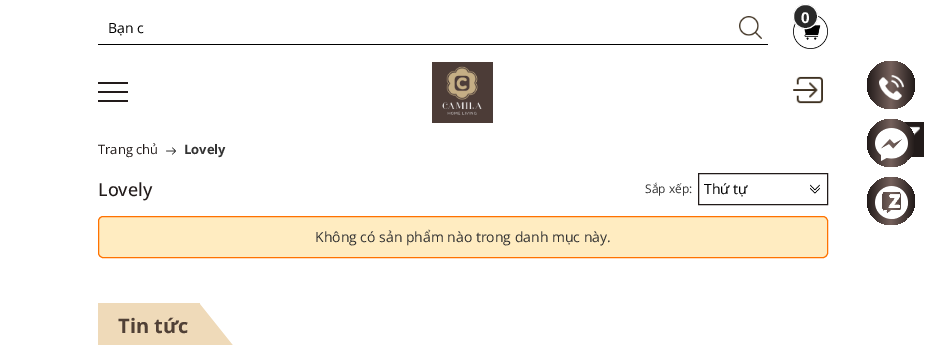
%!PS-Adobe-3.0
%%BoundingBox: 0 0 925 345
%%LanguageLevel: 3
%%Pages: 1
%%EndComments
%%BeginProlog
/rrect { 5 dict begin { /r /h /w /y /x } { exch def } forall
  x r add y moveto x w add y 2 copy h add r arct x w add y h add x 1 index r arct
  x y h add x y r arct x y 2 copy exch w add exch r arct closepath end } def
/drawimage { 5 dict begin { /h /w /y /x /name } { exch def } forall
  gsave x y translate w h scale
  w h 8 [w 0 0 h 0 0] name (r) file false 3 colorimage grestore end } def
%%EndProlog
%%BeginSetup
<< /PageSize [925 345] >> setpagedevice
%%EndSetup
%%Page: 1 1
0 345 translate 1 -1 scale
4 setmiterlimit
1 setgray
0 0 925 345 rectfill
(images/1.raw) 793 15 35 34 drawimage
0.165 setgray
793.5 4.5 24 24 11.5 rrect gsave fill grestore
1 setgray
stroke
0 setgray
98 44 670 1 rectfill
(images/2.raw) 739 16 23 23 drawimage
0.133 0.106 0.102 setrgbcolor
98 82 30 2 rectfill
98 91 30 2 rectfill
98 100 30 2 rectfill
(images/3.raw) 432 62 61 61 drawimage
(images/4.raw) 793 76 30 28 drawimage
(images/5.raw) 166 147 10 8 drawimage
gsave newpath 891 85 24 0 360 arc closepath clip newpath
<< /ShadingType 2 /ColorSpace /DeviceRGB /Coords [867 85 915 85] /Extend [true true] /Function << /FunctionType 3 /Domain [0 1] /Functions [<< /FunctionType 2 /Domain [0 1] /C0 [0.133 0.106 0.102] /C1 [0.459 0.38 0.361] /N 1 >> << /FunctionType 2 /Domain [0 1] /C0 [0.459 0.38 0.361] /C1 [0.133 0.106 0.102] /N 1 >>] /Bounds [0.5] /Encode [0 1 0 1] >> >> shfill grestore
(images/6.raw) 879 75 25 25 drawimage
902 122 22 35 rectfill
(images/9.raw) 908 126 12 10 drawimage
gsave newpath 891 143 24 0 360 arc closepath clip newpath
<< /ShadingType 2 /ColorSpace /DeviceRGB /Coords [867 143 915 143] /Extend [true true] /Function << /FunctionType 3 /Domain [0 1] /Functions [<< /FunctionType 2 /Domain [0 1] /C0 [0.133 0.106 0.102] /C1 [0.459 0.38 0.361] /N 1 >> << /FunctionType 2 /Domain [0 1] /C0 [0.459 0.38 0.361] /C1 [0.133 0.106 0.102] /N 1 >>] /Bounds [0.5] /Encode [0 1 0 1] >> >> shfill grestore
(images/7.raw) 875 128 33 33 drawimage
gsave newpath 891 201 24 0 360 arc closepath clip newpath
<< /ShadingType 2 /ColorSpace /DeviceRGB /Coords [867 201 915 201] /Extend [true true] /Function << /FunctionType 3 /Domain [0 1] /Functions [<< /FunctionType 2 /Domain [0 1] /C0 [0.133 0.106 0.102] /C1 [0.459 0.38 0.361] /N 1 >> << /FunctionType 2 /Domain [0 1] /C0 [0.459 0.38 0.361] /C1 [0.133 0.106 0.102] /N 1 >>] /Bounds [0.5] /Encode [0 1 0 1] >> >> shfill grestore
(images/8.raw) 875 186 33 33 drawimage
698.5 173.5 129 31 rectstroke
(images/10.raw) 810 184 10 10 drawimage
1 0.925 0.757 setrgbcolor
98.5 216.5 729 41 4.5 rrect gsave fill grestore
1 0.447 0 setrgbcolor
stroke
0.937 0.855 0.725 setrgbcolor
98 303 102 42 rectfill
newpath 199 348 moveto 199 303 lineto 235 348 lineto closepath fill
/OpenSans-Bold [15 0 0 -15 0 0] selectfont
1 setgray
801 23 moveto (0) show
/OpenSans-Regular [14 0 0 -14 0 0] selectfont
0 setgray
108 33 moveto (Bạn c) show
/OpenSans-Regular [13 0 0 -13 0 0] selectfont
0.133 0.106 0.102 setrgbcolor
98 154 moveto (Trang chủ) show
/OpenSans-Bold [13 0 0 -13 0 0] selectfont
0.2 setgray
184 154 moveto (Lovely) show
/OpenSans-Medium [18 0 0 -18 0 0] selectfont
0.133 0.106 0.102 setrgbcolor
98 196 moveto (Lovely) show
/OpenSans-Regular [12 0 0 -12 0 0] selectfont
0.2 setgray
645 193 moveto (Sắp xếp:) show
/OpenSans-Regular [14 0 0 -14 0 0] selectfont
0 setgray
704 194 moveto (Thứ tự) show
0.2 setgray
315 242 moveto (Không có sản phẩm nào trong danh mục này.) show
/OpenSans-Bold [20 0 0 -20 0 0] selectfont
0.314 0.251 0.212 setrgbcolor
118 333 moveto (Tin tức) show
showpage
%%EOF
